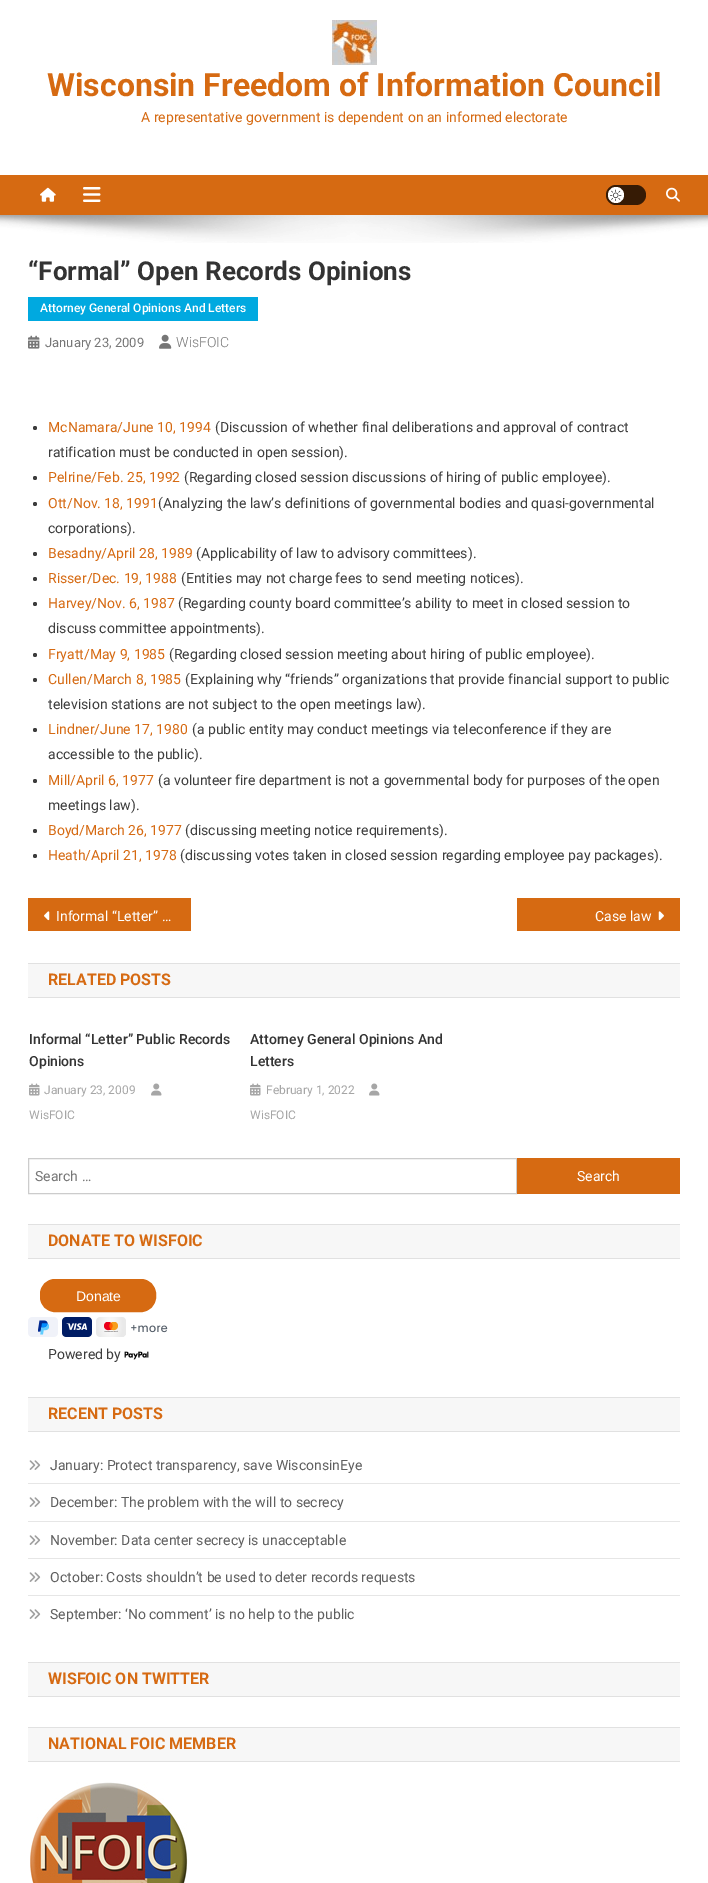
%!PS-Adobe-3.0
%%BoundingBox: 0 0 708 1883
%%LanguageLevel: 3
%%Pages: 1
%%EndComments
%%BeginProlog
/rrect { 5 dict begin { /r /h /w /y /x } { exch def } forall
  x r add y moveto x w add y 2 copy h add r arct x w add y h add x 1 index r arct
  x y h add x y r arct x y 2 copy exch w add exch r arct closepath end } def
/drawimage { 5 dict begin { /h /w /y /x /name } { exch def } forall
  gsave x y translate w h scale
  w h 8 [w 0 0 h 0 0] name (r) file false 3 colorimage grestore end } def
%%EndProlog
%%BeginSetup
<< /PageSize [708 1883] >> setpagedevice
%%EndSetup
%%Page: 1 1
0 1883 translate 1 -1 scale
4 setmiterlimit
1 setgray
0 0 708 1883 rectfill
(images/1.raw) 332 20 45 45 drawimage
0.839 0.416 0.071 setrgbcolor
0 175 708 40 rectfill
(images/2.raw) 40 187 16 15 drawimage
(images/3.raw) 83 187 18 15 drawimage
0.212 0.106 0.02 setrgbcolor
606 185 40 20 10 rrect fill
1 setgray
newpath 616 195 8 0 360 arc closepath fill
(images/4.raw) 610 189 12 12 drawimage
(images/5.raw) 666 187 14 15 drawimage
(images/6.raw) 0 215 708 28 drawimage
0 0.663 0.878 setrgbcolor
28 297 230 24 rectfill
(images/7.raw) 28 335 12 14 drawimage
(images/8.raw) 159 334 13 15 drawimage
0.239 setgray
newpath 35 428 2 0 360 arc closepath fill
newpath 35 478 2 0 360 arc closepath fill
newpath 35 504 2 0 360 arc closepath fill
newpath 35 554 2 0 360 arc closepath fill
newpath 35 579 2 0 360 arc closepath fill
newpath 35 604 2 0 360 arc closepath fill
newpath 35 655 2 0 360 arc closepath fill
newpath 35 680 2 0 360 arc closepath fill
newpath 35 730 2 0 360 arc closepath fill
newpath 35 781 2 0 360 arc closepath fill
newpath 35 831 2 0 360 arc closepath fill
newpath 35 856 2 0 360 arc closepath fill
0.839 0.416 0.071 setrgbcolor
28 898 163 33 rectfill
(images/9.raw) 44 911 6 10 drawimage
517 898 163 33 rectfill
(images/10.raw) 658 911 6 10 drawimage
0.969 setgray
28 964 652 33 rectfill
0.882 setgray
28 963 652 1 rectfill
28 997 652 1 rectfill
(images/11.raw) 29 1083 11 13 drawimage
(images/12.raw) 151 1083 11 13 drawimage
(images/11.raw) 250 1083 11 13 drawimage
(images/12.raw) 369 1083 11 13 drawimage
0.8 setgray
28.5 1158.5 488 35 rectstroke
0.839 0.416 0.071 setrgbcolor
517 1158 163 36 rectfill
0.969 setgray
28 1225 652 33 rectfill
0.882 setgray
28 1224 652 1 rectfill
28 1258 652 1 rectfill
0.839 0.416 0.071 setrgbcolor
40.5 1279.5 115 32 14.5 rrect gsave fill grestore
stroke
(images/13.raw) 28 1317 140 20 drawimage
(images/14.raw) 124 1351 25 9 drawimage
0.969 setgray
28 1398 652 33 rectfill
0.882 setgray
28 1397 652 1 rectfill
28 1431 652 1 rectfill
0.902 setgray
28 1483 652 1 rectfill
(images/15.raw) 29 1460 12 10 drawimage
28 1521 652 1 rectfill
(images/15.raw) 29 1497 12 10 drawimage
28 1558 652 1 rectfill
(images/15.raw) 29 1535 12 10 drawimage
28 1595 652 1 rectfill
(images/15.raw) 29 1572 12 10 drawimage
(images/15.raw) 29 1609 12 10 drawimage
0.969 setgray
28 1663 652 33 rectfill
0.882 setgray
28 1662 652 1 rectfill
28 1696 652 1 rectfill
0.969 setgray
28 1728 652 33 rectfill
0.882 setgray
28 1727 652 1 rectfill
28 1761 652 1 rectfill
(images/16.raw) 30 1782 158 101 drawimage
/Roboto-Bold [32 0 0 -32 0 0] selectfont
0.839 0.416 0.071 setrgbcolor
47 96 moveto (Wisconsin Freedom of Information Council) show
/Roboto-Regular [14 0 0 -14 0 0] selectfont
141 122 moveto (A representative government is dependent on an informed electorate) show
/Roboto-Bold [26 0 0 -26 0 0] selectfont
0.2 setgray
28 280 moveto (“Formal” Open Records Opinions) show
/Roboto-Medium [12 0 0 -12 0 0] selectfont
1 setgray
40 312 moveto (Attorney General Opinions And Letters) show
/Roboto-Regular [13 0 0 -13 0 0] selectfont
0.463 setgray
45 347 moveto (January 23, 2009) show
/Roboto-Light [14 0 0 -14 0 0] selectfont
176 347 moveto (WisFOIC) show
/Roboto-Regular [14 0 0 -14 0 0] selectfont
0.839 0.416 0.071 setrgbcolor
48 432 moveto (McNamara/June 10, 1994) show
0.239 setgray
215 432 moveto (\(Discussion of whether final deliberations and approval of contract) show
48 457 moveto (ratification must be conducted in open session\).) show
0.839 0.416 0.071 setrgbcolor
48 482 moveto (Pelrine/Feb. 25, 1992) show
0.239 setgray
184 482 moveto (\(Regarding closed session discussions of hiring of public employee\).) show
0.839 0.416 0.071 setrgbcolor
48 508 moveto (Ott/Nov. 18, 1991) show
0.239 setgray
158 508 moveto (\(Analyzing the law’s definitions of governmental bodies and quasi-governmental) show
48 533 moveto (corporations\).) show
0.839 0.416 0.071 setrgbcolor
48 558 moveto (Besadny/April 28, 1989) show
0.239 setgray
196 558 moveto (\(Applicability of law to advisory committees\).) show
0.839 0.416 0.071 setrgbcolor
48 583 moveto (Risser/Dec. 19, 1988) show
0.239 setgray
181 583 moveto (\(Entities may not charge fees to send meeting notices\).) show
0.839 0.416 0.071 setrgbcolor
48 608 moveto (Harvey/Nov. 6, 1987) show
0.239 setgray
178 608 moveto (\(Regarding county board committee’s ability to meet in closed session to) show
48 633 moveto (discuss committee appointments\).) show
0.839 0.416 0.071 setrgbcolor
48 659 moveto (Fryatt/May 9, 1985) show
0.239 setgray
169 659 moveto (\(Regarding closed session meeting about hiring of public employee\).) show
0.839 0.416 0.071 setrgbcolor
48 684 moveto (Cullen/March 8, 1985) show
0.239 setgray
185 684 moveto (\(Explaining why “friends” organizations that provide financial support to public) show
48 709 moveto (television stations are not subject to the open meetings law\).) show
0.839 0.416 0.071 setrgbcolor
48 734 moveto (Lindner/June 17, 1980) show
0.239 setgray
192 734 moveto (\(a public entity may conduct meetings via teleconference if they are) show
48 759 moveto (accessible to the public\).) show
0.839 0.416 0.071 setrgbcolor
48 785 moveto (Mill/April 6, 1977) show
0.239 setgray
158 785 moveto (\(a volunteer fire department is not a governmental body for purposes of the open) show
48 810 moveto (meetings law\).) show
0.839 0.416 0.071 setrgbcolor
48 835 moveto (Boyd/March 26, 1977) show
0.239 setgray
185 835 moveto (\(discussing meeting notice requirements\).) show
0.839 0.416 0.071 setrgbcolor
48 860 moveto (Heath/April 21, 1978) show
0.239 setgray
180 860 moveto (\(discussing votes taken in closed session regarding employee pay packages\).) show
1 setgray
56 921 moveto (Informal “Letter” …) show
595 921 moveto (Case law) show
/Roboto-Bold [16 0 0 -16 0 0] selectfont
0.839 0.416 0.071 setrgbcolor
48 985 moveto (RELATED POSTS) show
/Roboto-Medium [14 0 0 -14 0 0] selectfont
0.2 setgray
29 1044 moveto (Informal “Letter” Public Records) show
29 1066 moveto (Opinions) show
/Roboto-Regular [12 0 0 -12 0 0] selectfont
0.651 setgray
44 1094 moveto (January 23, 2009) show
29 1119 moveto (WisFOIC) show
/Roboto-Medium [14 0 0 -14 0 0] selectfont
0.2 setgray
250 1044 moveto (Attorney General Opinions And) show
250 1066 moveto (Letters) show
/Roboto-Regular [12 0 0 -12 0 0] selectfont
0.651 setgray
266 1094 moveto (February 1, 2022) show
250 1119 moveto (WisFOIC) show
/Roboto-Regular [14 0 0 -14 0 0] selectfont
0.463 setgray
35 1181 moveto (Search …) show
1 setgray
577 1181 moveto (Search) show
/Roboto-Bold [16 0 0 -16 0 0] selectfont
0.839 0.416 0.071 setrgbcolor
48 1246 moveto (DONATE TO WISFOIC) show
/LiberationSans-Regular [14 0 0 -14 0 0] selectfont
1 setgray
76 1301 moveto (Donate) show
/Roboto-Regular [14 0 0 -14 0 0] selectfont
0.239 setgray
48 1359 moveto (Powered by) show
/Roboto-Bold [16 0 0 -16 0 0] selectfont
0.839 0.416 0.071 setrgbcolor
48 1419 moveto (RECENT POSTS) show
/Roboto-Regular [14 0 0 -14 0 0] selectfont
0.373 setgray
50 1470 moveto (January: Protect transparency, save WisconsinEye) show
50 1507 moveto (December: The problem with the will to secrecy) show
50 1545 moveto (November: Data center secrecy is unacceptable) show
50 1582 moveto (October: Costs shouldn’t be used to deter records requests) show
50 1619 moveto (September: ‘No comment’ is no help to the public) show
/Roboto-Bold [16 0 0 -16 0 0] selectfont
0.839 0.416 0.071 setrgbcolor
48 1684 moveto (WISFOIC ON TWITTER) show
48 1749 moveto (NATIONAL FOIC MEMBER) show
showpage
%%EOF
